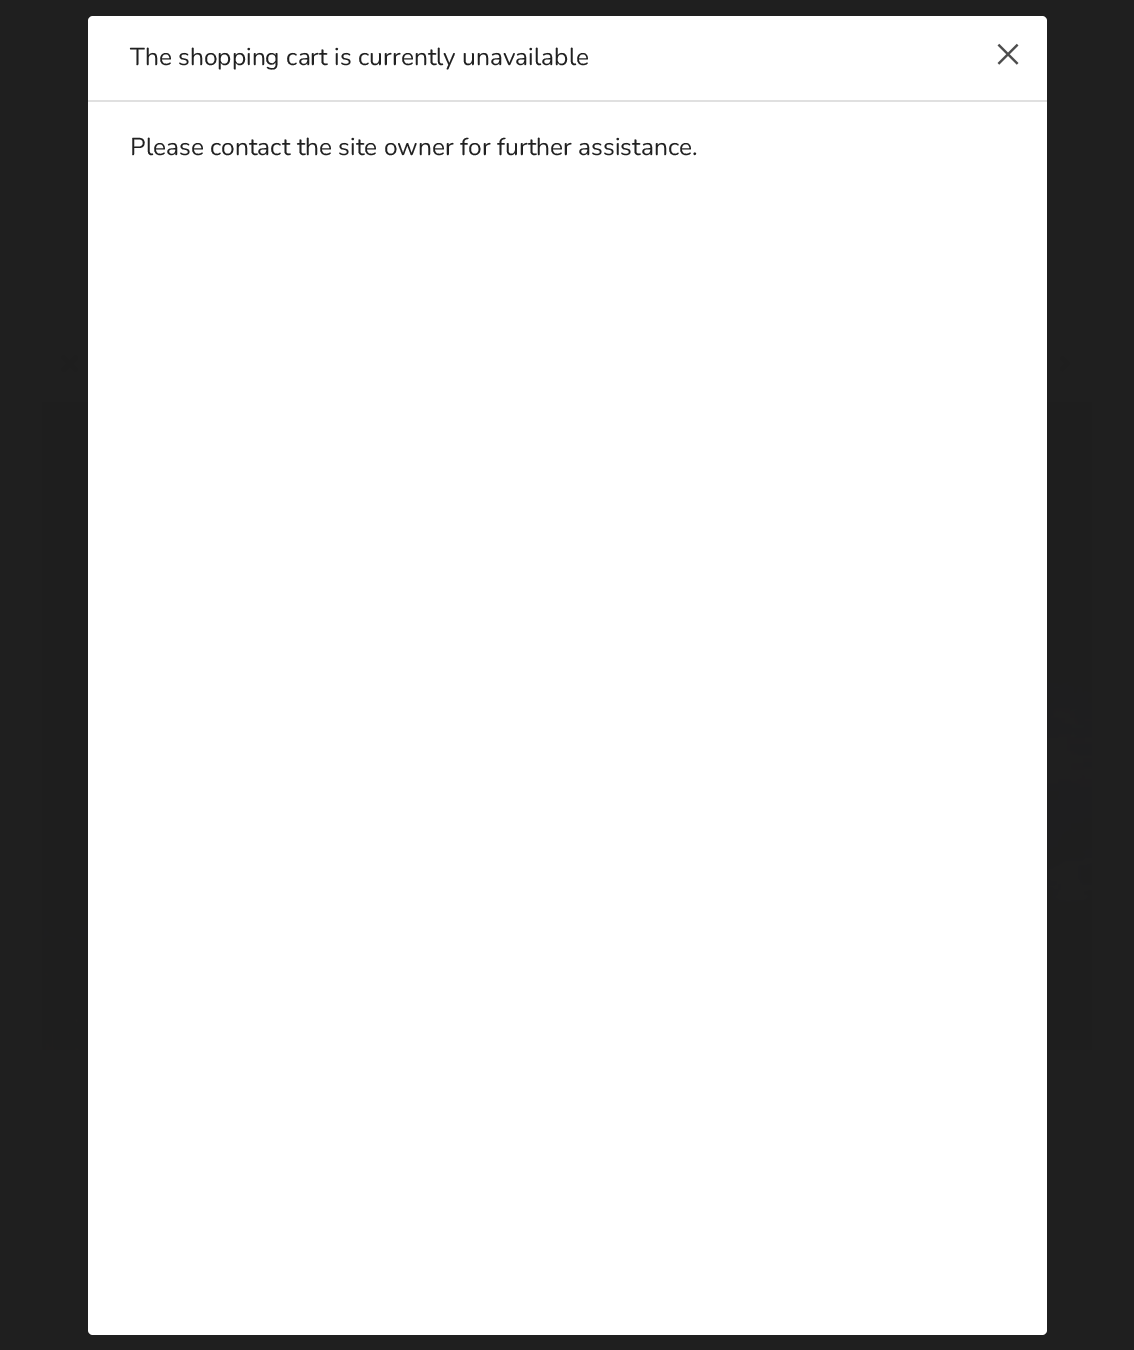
%!PS-Adobe-3.0
%%BoundingBox: 0 0 1134 1350
%%LanguageLevel: 3
%%Pages: 1
%%EndComments
%%BeginProlog
/rrect { 5 dict begin { /r /h /w /y /x } { exch def } forall
  x r add y moveto x w add y 2 copy h add r arct x w add y h add x 1 index r arct
  x y h add x y r arct x y 2 copy exch w add exch r arct closepath end } def
/drawimage { 5 dict begin { /h /w /y /x /name } { exch def } forall
  gsave x y translate w h scale
  w h 8 [w 0 0 h 0 0] name (r) file false 3 colorimage grestore end } def
%%EndProlog
%%BeginSetup
<< /PageSize [1134 1350] >> setpagedevice
%%EndSetup
%%Page: 1 1
0 1350 translate 1 -1 scale
4 setmiterlimit
0.122 setgray
0 0 1134 1350 rectfill
(images/4.raw) 42 402 1050 648 drawimage
1 setgray
88 16 959 1319 5 rrect fill
0.878 setgray
88 100 959 2 rectfill
(images/1.raw) 997 43 22 22 drawimage
(images/2.raw) 61 355 18 17 drawimage
(images/3.raw) 1060 355 10 17 drawimage
/Nunito-Regular [24.5 0 0 -24.5 0 0] selectfont
0.129 setgray
130 65 moveto (The shopping cart is currently unavailable) show
130 155 moveto (Please contact the site owner for further assistance.) show
showpage
%%EOF
